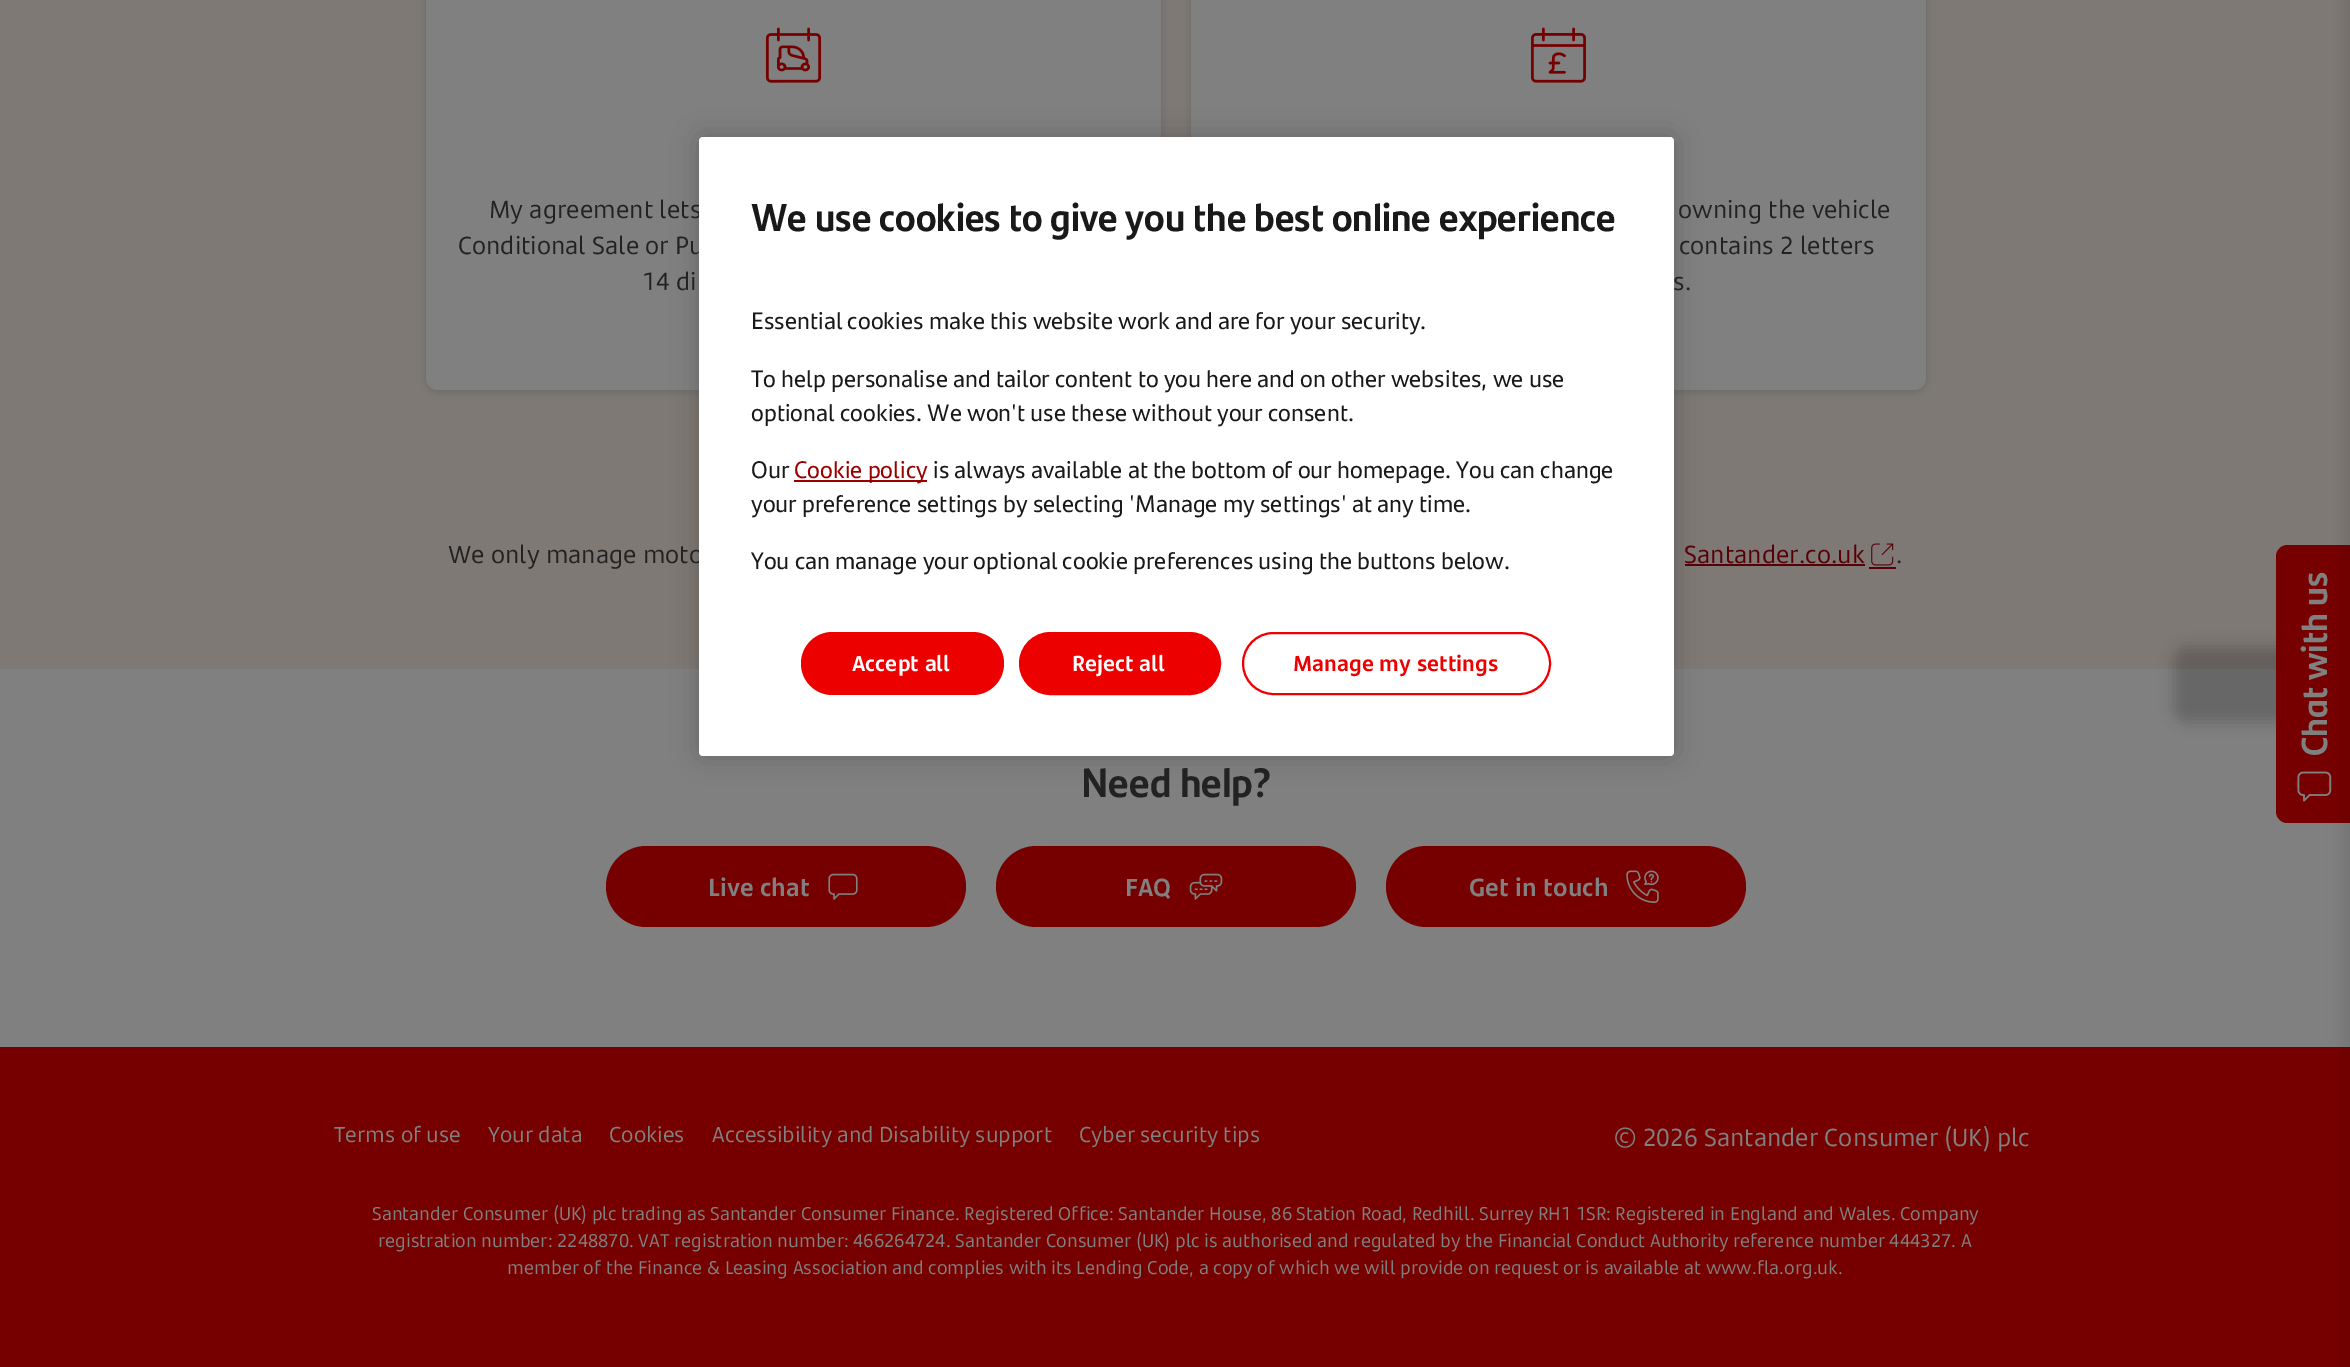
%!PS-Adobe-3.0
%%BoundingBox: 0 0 2350 1367
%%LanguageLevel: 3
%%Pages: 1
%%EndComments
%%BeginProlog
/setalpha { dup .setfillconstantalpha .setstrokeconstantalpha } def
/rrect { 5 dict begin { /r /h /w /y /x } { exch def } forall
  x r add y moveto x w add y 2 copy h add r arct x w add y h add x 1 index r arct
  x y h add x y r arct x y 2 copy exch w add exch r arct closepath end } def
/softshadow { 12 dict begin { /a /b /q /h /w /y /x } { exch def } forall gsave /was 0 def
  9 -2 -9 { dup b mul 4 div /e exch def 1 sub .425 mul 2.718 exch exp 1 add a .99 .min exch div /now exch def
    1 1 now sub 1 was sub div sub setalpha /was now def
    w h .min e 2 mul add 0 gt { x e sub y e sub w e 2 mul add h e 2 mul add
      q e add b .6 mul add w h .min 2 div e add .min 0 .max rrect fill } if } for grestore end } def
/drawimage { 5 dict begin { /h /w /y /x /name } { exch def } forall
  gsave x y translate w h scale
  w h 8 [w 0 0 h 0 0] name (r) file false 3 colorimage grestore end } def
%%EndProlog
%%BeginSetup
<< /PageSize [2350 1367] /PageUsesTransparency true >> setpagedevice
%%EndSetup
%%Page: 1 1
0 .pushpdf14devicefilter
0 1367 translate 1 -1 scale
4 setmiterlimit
0.502 setgray
0 0 2350 1367 rectfill
0.494 0.475 0.459 setrgbcolor
0 0 2350 669 rectfill
0.322 setgray
426 -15 735 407 12 4.5 0.4 softshadow
0.502 setgray
426 -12 735 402 12 rrect fill
(images/1.raw) 765 27 57 56 drawimage
0.322 setgray
1191 -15 735 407 12 4.5 0.4 softshadow
0.502 setgray
1191 -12 735 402 12 rrect fill
(images/2.raw) 1531 27 55 56 drawimage
0.345 0 0.031 setrgbcolor
1685 564 180 2 rectfill
1869 567 27 2 rectfill
(images/3.raw) 1871 543 23 23 drawimage
0.463 0 0 setrgbcolor
0 1047 2350 320 rectfill
0 setgray
2174 647 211 75 12 7.5 0.2 softshadow
0.463 0 0 setrgbcolor
newpath 2276 811 moveto 2276 557 lineto 2276 550 2281 545 2288 545 curveto 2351 545 lineto 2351 823 lineto 2288 823 lineto 2281 823 2276 818 2276 811 curveto closepath fill
(images/7.raw) 2297 771 35 31 drawimage
0 setgray
2343 -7 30 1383 0 7.5 0.1 softshadow
0.463 0 0 setrgbcolor
606 846 360 81 40.5 rrect fill
(images/4.raw) 828 873 30 27 drawimage
996 846 360 81 40.5 rrect fill
(images/5.raw) 1189 873 34 27 drawimage
1386 846 360 81 40.5 rrect fill
(images/6.raw) 1626 870 33 33 drawimage
0 setgray
699 137 975 619 4 13.5 0.2 softshadow
/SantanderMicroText-Regular [24 0 0 -24 0 0] selectfont
0.133 setgray
489 218 moveto (My agreement lets) show
458 254 moveto (Conditional Sale or Pu) show
642 290 moveto (14 di) show
1678 218 moveto (owning the vehicle) show
1679 254 moveto (contains 2 letters) show
1673 290 moveto (s.) show
448 563 moveto (We only manage moto) show
0.345 0 0.031 setrgbcolor
1684 563 moveto (Santander.co.uk) show
0.133 setgray
1896 563 moveto (.) show
/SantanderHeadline-Bold [41 0 0 -41 0 0] selectfont
1081 797 moveto (Need help?) show
/SantanderMicroText-Bold [24 0 0 -24 0 0] selectfont
0.502 setgray
708 896 moveto (Live chat) show
1125 896 moveto (FAQ) show
1469 896 moveto (Get in touch) show
/SantanderMicroText-Regular [21 0 0 -21 0 0] selectfont
334 1142 moveto (Terms of use) show
488 1142 moveto (Your data) show
609 1142 moveto (Cookies) show
712 1142 moveto (Accessibility and Disability support) show
1079 1142 moveto (Cyber security tips) show
/SantanderMicroText-Regular [24 0 0 -24 0 0] selectfont
1614 1146 moveto (© 2026 Santander Consumer \(UK\) plc) show
/SantanderMicroText-Regular [18 0 0 -18 0 0] selectfont
372 1220 moveto (Santander Consumer \(UK\) plc trading as Santander Consumer Finance. Registered Office: Santander House, 86 Station Road, Redhill. Surrey RH1 1SR: Registered in England and Wales. Company) show
378 1247 moveto (registration number: 2248870. VAT registration number: 466264724. Santander Consumer \(UK\) plc is authorised and regulated by the Financial Conduct Authority reference number 444327. A) show
507 1274 moveto (member of the Finance & Leasing Association and complies with its Lending Code, a copy of which we will provide on request or is available at www.fla.org.uk.) show
1 setgray
699 137 975 619 4 rrect fill
/SantanderHeadline-Bold [39 0 0 -39 0 0] selectfont
0.098 setgray
751 231 moveto (We use cookies to give you the best online experience) show
/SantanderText-Regular [24 0 0 -24 0 0] selectfont
751 329 moveto (Essential cookies make this website work and are for your security.) show
751 387 moveto (To help personalise and tailor content to you here and on other websites, we use) show
751 421 moveto (optional cookies. We won't use these without your consent.) show
751 478 moveto (Our) show
0.6 0 0 setrgbcolor
794 480 133 2 rectfill
794 478 moveto (Cookie policy) show
0.098 setgray
933 478 moveto (is always available at the bottom of our homepage. You can change) show
751 512 moveto (your preference settings by selecting 'Manage my settings' at any time.) show
751 569 moveto (You can manage your optional cookie preferences using the buttons below.) show
0.925 0 0 setrgbcolor
801 632 203 63 31.5 rrect fill
/SantanderMicroText-Bold [21 0 0 -21 0 0] selectfont
1 setgray
852 671 moveto (Accept all) show
0.925 0 0 setrgbcolor
1020 633 200 61 30.5 rrect gsave fill grestore
2 setlinewidth
stroke
1 setgray
1072 671 moveto (Reject all) show
0.925 0 0 setrgbcolor
1243 633 307 61 30.5 rrect stroke
1293 671 moveto (Manage my settings) show
/SantanderHeadline-Bold [36 0 0 -36 0 0] selectfont
0.502 setgray
gsave 2327 756 translate -90 rotate 0 0 moveto (Chat with us) show grestore
.poppdf14devicefilter showpage
%%EOF
